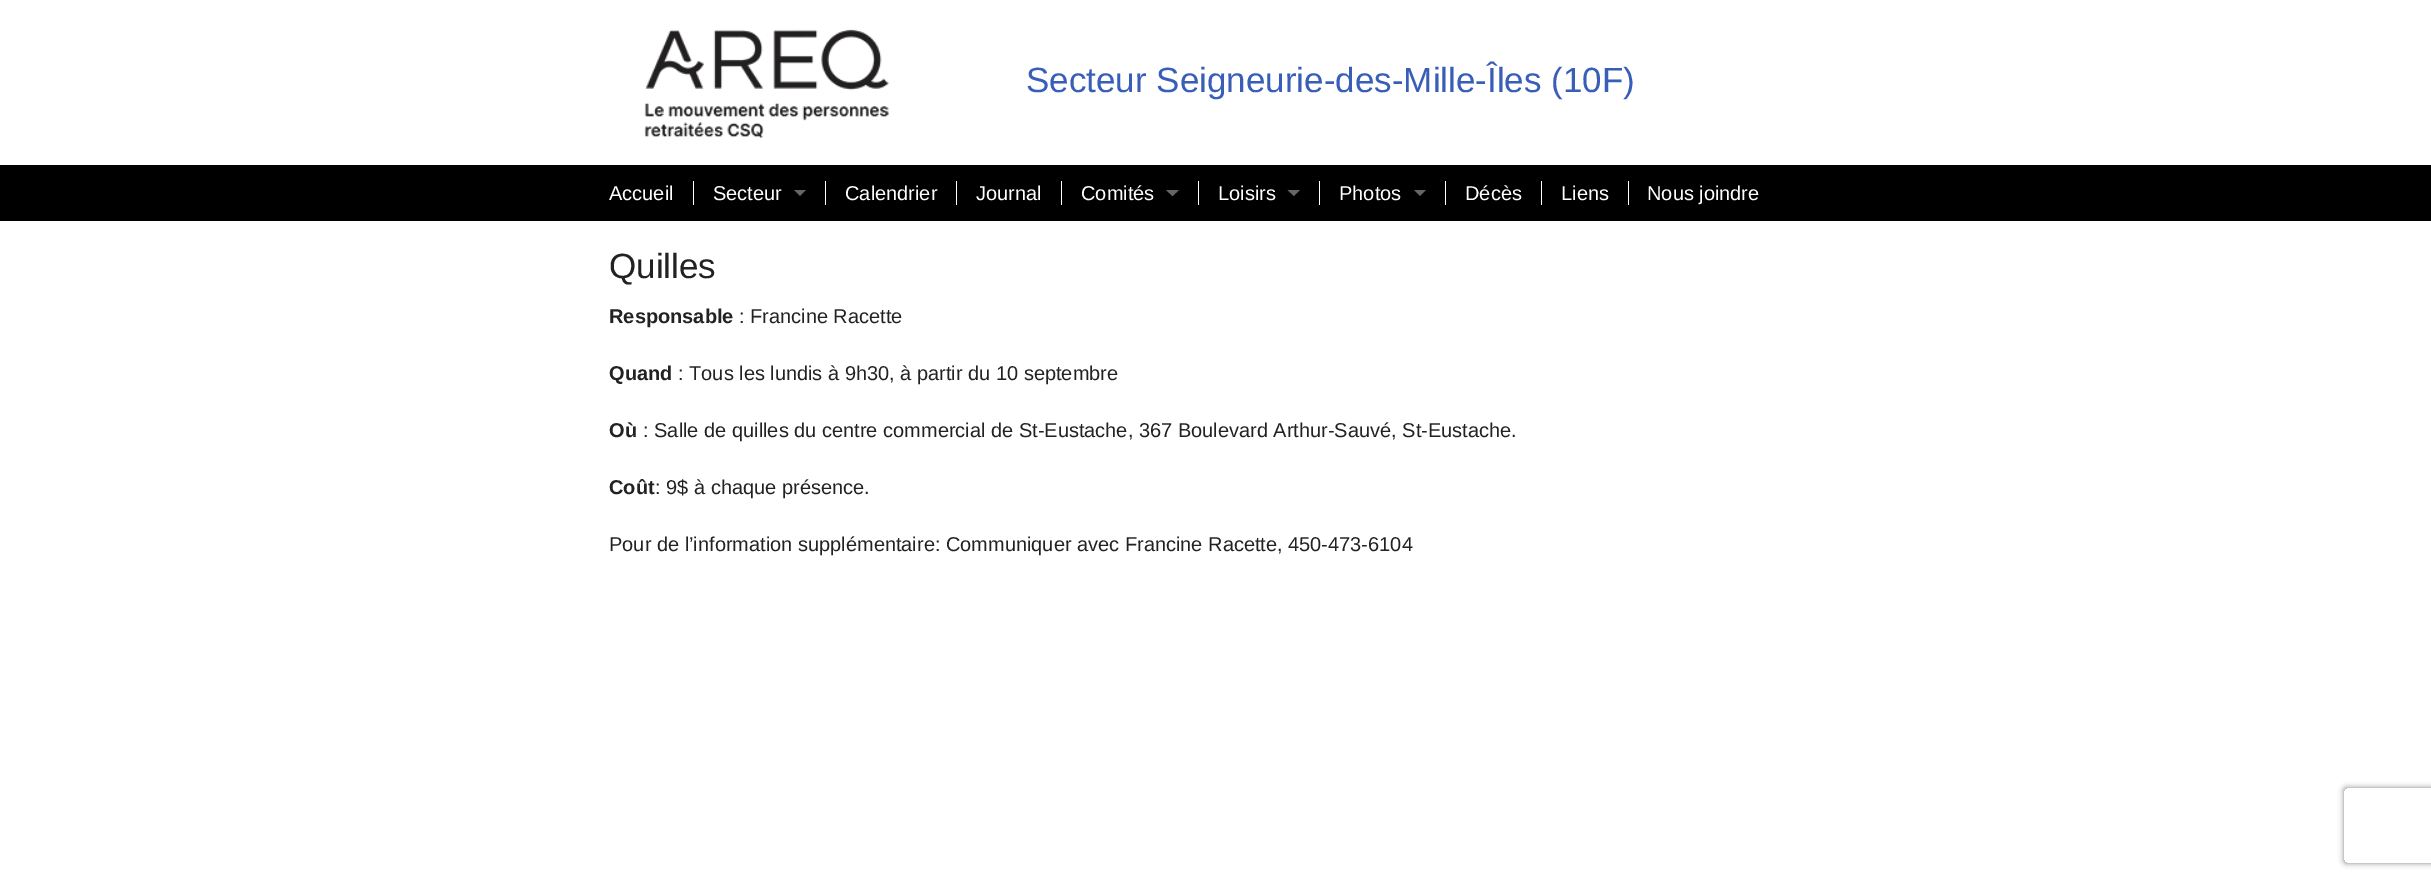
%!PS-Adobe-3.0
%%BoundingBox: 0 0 2431 880
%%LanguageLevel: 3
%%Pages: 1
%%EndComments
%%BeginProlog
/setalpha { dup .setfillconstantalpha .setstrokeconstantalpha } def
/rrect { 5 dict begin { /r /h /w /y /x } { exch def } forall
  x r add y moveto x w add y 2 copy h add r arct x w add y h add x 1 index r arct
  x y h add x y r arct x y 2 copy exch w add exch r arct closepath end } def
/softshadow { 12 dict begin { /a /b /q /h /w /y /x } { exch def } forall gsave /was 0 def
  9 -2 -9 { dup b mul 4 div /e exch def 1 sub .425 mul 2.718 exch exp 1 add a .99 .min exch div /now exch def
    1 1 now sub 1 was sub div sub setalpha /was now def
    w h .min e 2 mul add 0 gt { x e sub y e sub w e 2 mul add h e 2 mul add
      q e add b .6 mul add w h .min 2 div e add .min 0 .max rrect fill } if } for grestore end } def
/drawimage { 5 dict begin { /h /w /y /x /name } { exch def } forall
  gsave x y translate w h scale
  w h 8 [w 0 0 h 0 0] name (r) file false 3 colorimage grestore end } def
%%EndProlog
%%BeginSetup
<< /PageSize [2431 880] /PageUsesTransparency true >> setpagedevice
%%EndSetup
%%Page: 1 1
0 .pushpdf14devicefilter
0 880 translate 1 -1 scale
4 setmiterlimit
1 setgray
0 0 2431 880 rectfill
(images/1.raw) 644 29 245 109 drawimage
0 setgray
0 165 2431 56 rectfill
1 setgray
693 181 1 24 rectfill
0.4 setgray
newpath 794 190 moveto 806 190 lineto 800 196 lineto closepath fill
1 setgray
825 181 1 24 rectfill
956 181 1 24 rectfill
1061 181 1 24 rectfill
0.4 setgray
newpath 1166 190 moveto 1179 190 lineto 1172.5 196 lineto closepath fill
1 setgray
1198 181 1 24 rectfill
0.4 setgray
newpath 1287.5 190 moveto 1300 190 lineto 1294 196 lineto closepath fill
1 setgray
1319 181 1 24 rectfill
0.4 setgray
newpath 1414 190 moveto 1426 190 lineto 1420 196 lineto closepath fill
1 setgray
1445 181 1 24 rectfill
1541 181 1 24 rectfill
1628 181 1 24 rectfill
gsave
newpath 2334 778 moveto 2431 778 lineto 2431 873 lineto 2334 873 lineto closepath 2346.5 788 moveto 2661.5 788 lineto 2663 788 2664 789 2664 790.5 curveto 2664 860.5 lineto 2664 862 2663 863 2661.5 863 curveto 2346.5 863 lineto 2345 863 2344 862 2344 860.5 curveto 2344 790.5 lineto 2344 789 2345 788 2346.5 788 curveto closepath eoclip newpath
0.502 setgray
2344 788 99 75 2.5 3 1 softshadow
grestore
/LiberationSans-Regular [35 0 0 -35 0 0] selectfont
0.224 0.369 0.722 setrgbcolor
1026 92 moveto (Secteur Seigneurie-des-Mille-Îles \(10F\)) show
/LiberationSans-Regular [20 0 0 -20 0 0] selectfont
1 setgray
609 200 moveto (Accueil) show
713 200 moveto (Secteur) show
845 200 moveto (Calendrier) show
976 200 moveto (Journal) show
1081 200 moveto (Comités) show
1218 200 moveto (Loisirs) show
1339 200 moveto (Photos) show
1465 200 moveto (Décès) show
1561 200 moveto (Liens) show
1647 200 moveto (Nous joindre) show
/LiberationSans-Regular [35 0 0 -35 0 0] selectfont
0.133 setgray
609 278 moveto (Quilles) show
/LiberationSans-Bold [20 0 0 -20 0 0] selectfont
609 323 moveto (Responsable) show
/LiberationSans-Regular [20 0 0 -20 0 0] selectfont
739 323 moveto (: Francine Racette) show
/LiberationSans-Bold [20 0 0 -20 0 0] selectfont
609 380 moveto (Quand) show
/LiberationSans-Regular [20 0 0 -20 0 0] selectfont
678 380 moveto (: Tous les lundis à 9h30, à partir du 10 septembre) show
/LiberationSans-Bold [20 0 0 -20 0 0] selectfont
609 437 moveto (Où) show
/LiberationSans-Regular [20 0 0 -20 0 0] selectfont
643 437 moveto (: Salle de quilles du centre commercial de St-Eustache, 367 Boulevard Arthur-Sauvé, St-Eustache.) show
/LiberationSans-Bold [20 0 0 -20 0 0] selectfont
609 494 moveto (Coût) show
/LiberationSans-Regular [20 0 0 -20 0 0] selectfont
655 494 moveto (: 9$ à chaque présence.) show
609 551 moveto (Pour de l’information supplémentaire: Communiquer avec Francine Racette, 450-473-6104) show
.poppdf14devicefilter showpage
%%EOF
